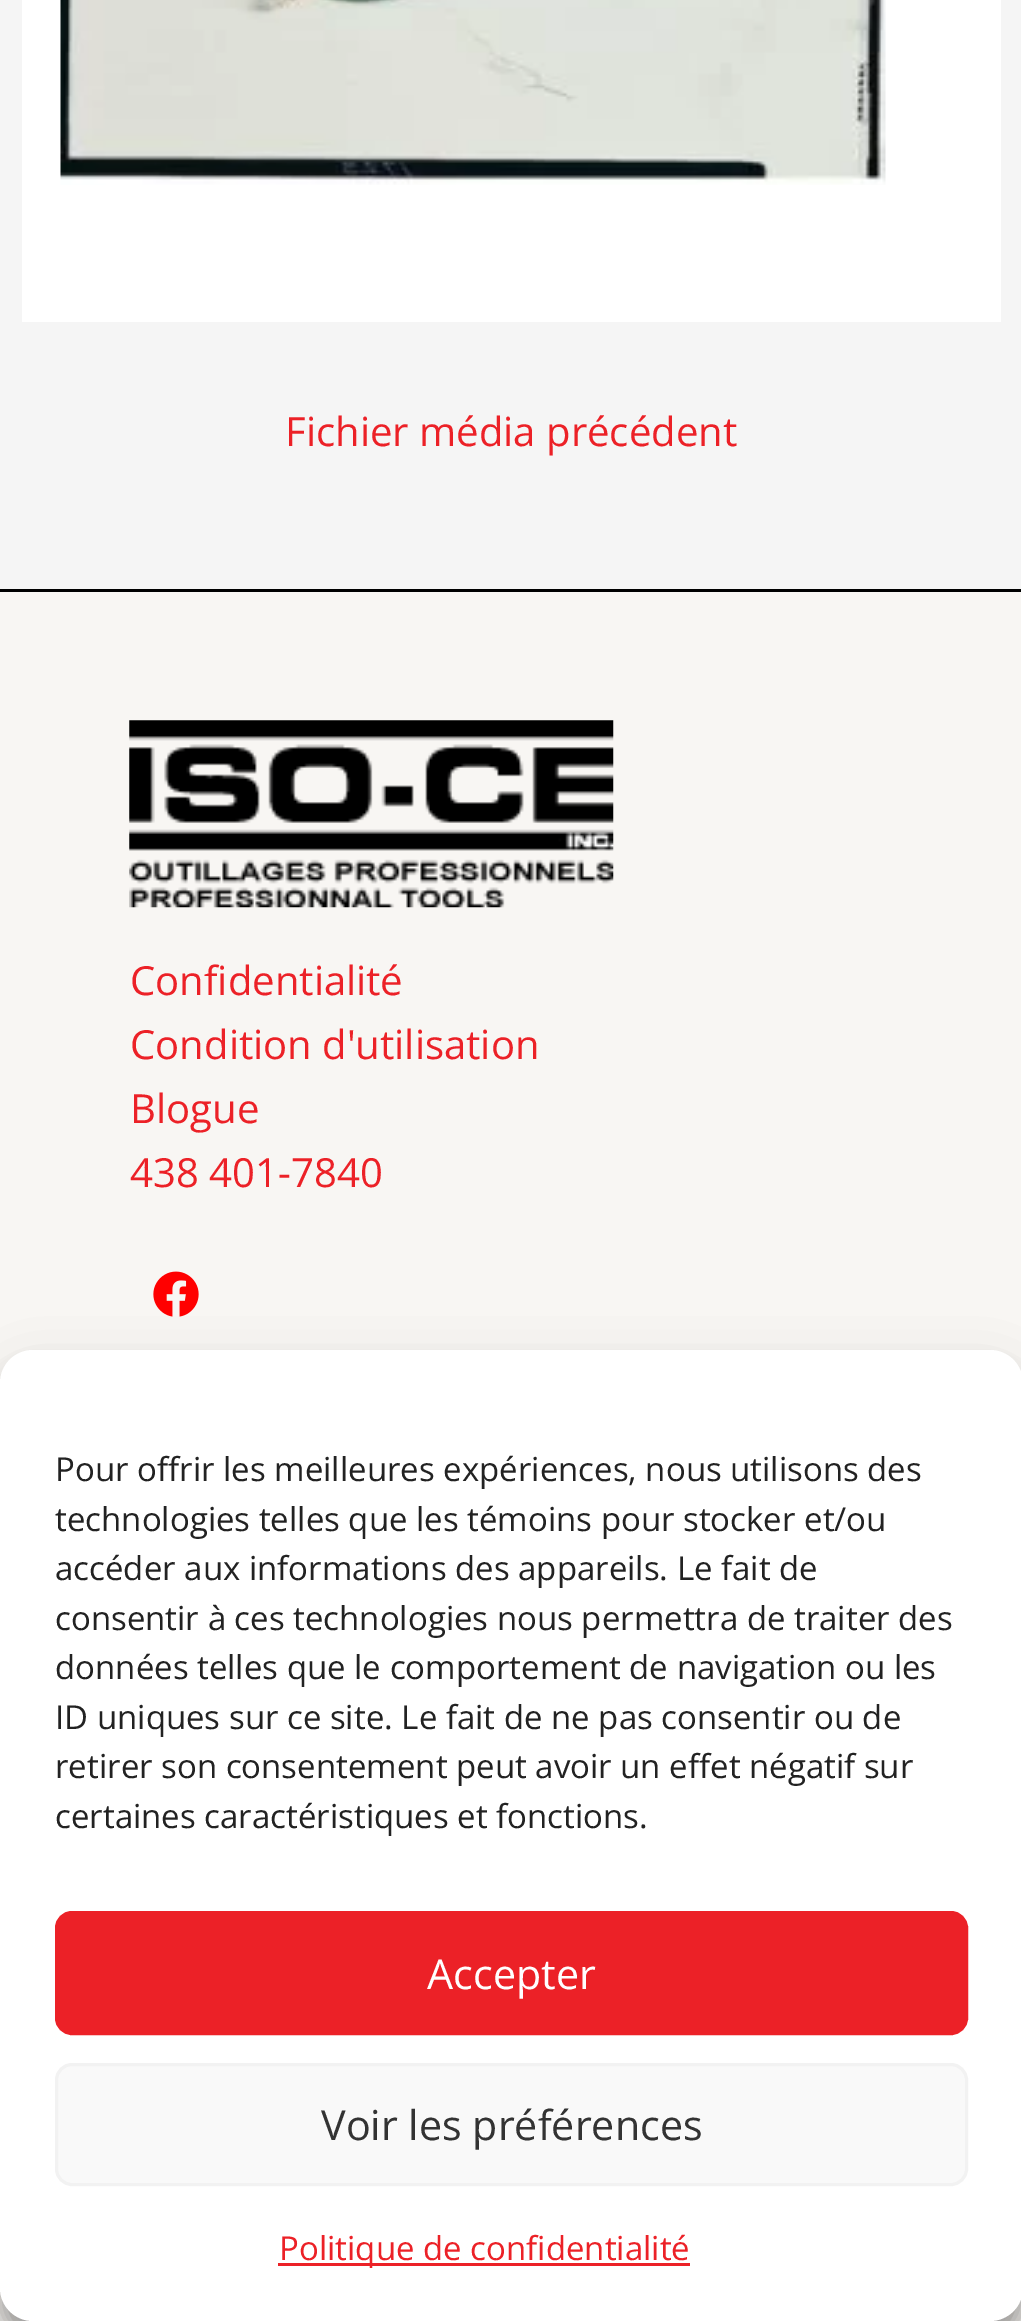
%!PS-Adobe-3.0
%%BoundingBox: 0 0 1021 2321
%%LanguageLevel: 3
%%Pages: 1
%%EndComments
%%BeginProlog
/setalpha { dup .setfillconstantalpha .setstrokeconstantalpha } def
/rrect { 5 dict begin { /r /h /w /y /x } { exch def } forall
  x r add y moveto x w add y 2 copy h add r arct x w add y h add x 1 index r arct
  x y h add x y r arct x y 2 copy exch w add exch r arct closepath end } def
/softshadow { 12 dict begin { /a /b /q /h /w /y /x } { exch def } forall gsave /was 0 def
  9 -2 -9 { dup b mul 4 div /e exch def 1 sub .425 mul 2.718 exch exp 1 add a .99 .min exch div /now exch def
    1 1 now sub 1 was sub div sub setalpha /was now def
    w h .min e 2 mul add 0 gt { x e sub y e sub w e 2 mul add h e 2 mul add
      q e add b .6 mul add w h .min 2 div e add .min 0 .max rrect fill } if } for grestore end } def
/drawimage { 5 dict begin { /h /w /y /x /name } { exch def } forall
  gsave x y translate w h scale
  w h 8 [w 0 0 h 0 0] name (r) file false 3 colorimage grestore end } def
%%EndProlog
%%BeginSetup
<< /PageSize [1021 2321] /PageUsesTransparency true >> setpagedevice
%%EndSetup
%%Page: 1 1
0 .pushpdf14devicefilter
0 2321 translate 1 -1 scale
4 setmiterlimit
0.961 setgray
0 0 1021 2321 rectfill
1 setgray
22 0 979 322 rectfill
(images/1.raw) 60 0 826 185 drawimage
0.973 0.965 0.953 setrgbcolor
0 592 1021 1729 rectfill
0 setgray
0 589 1021 3 rectfill
(images/2.raw) 129 720 485 188 drawimage
(images/3.raw) 153 1271 46 46 drawimage
0 1367 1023 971 33 8 0.23 softshadow
0 1378 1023 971 33 27.5 0.19 softshadow
1 setgray
0 1350 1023 971 33 rrect fill
0.925 0.129 0.153 setrgbcolor
56.5 1912.5 910 121 15.5 rrect gsave fill grestore
3 setlinewidth
stroke
0.976 setgray
56.5 2064.5 910 120 15.5 rrect gsave fill grestore
0.949 setgray
stroke
0.925 0.129 0.153 setrgbcolor
278 2263 412 3 rectfill
/OpenSans-Regular [40.1 0 0 -40.1 0 0] selectfont
285 446 moveto (Fichier média précédent) show
130 995 moveto (Confidentialité) show
130 1059 moveto (Condition d'utilisation) show
130 1123 moveto (Blogue) show
130 1187 moveto (438 401-7840) show
/OpenSans-Regular [33 0 0 -33 0 0] selectfont
0.133 setgray
55 1481 moveto (Pour offrir les meilleures expériences, nous utilisons des) show
55 1531 moveto (technologies telles que les témoins pour stocker et/ou) show
55 1580 moveto (accéder aux informations des appareils. Le fait de) show
55 1630 moveto (consentir à ces technologies nous permettra de traiter des) show
55 1679 moveto (données telles que le comportement de navigation ou les) show
55 1729 moveto (ID uniques sur ce site. Le fait de ne pas consentir ou de) show
55 1778 moveto (retirer son consentement peut avoir un effet négatif sur) show
55 1828 moveto (certaines caractéristiques et fonctions.) show
/OpenSans-Regular [41.25 0 0 -41.25 0 0] selectfont
1 setgray
427 1989 moveto (Accepter) show
0.2 setgray
321 2140 moveto (Voir les préférences) show
/OpenSans-Regular [33 0 0 -33 0 0] selectfont
0.925 0.129 0.153 setrgbcolor
279 2260 moveto (Politique de confidentialité) show
.poppdf14devicefilter showpage
%%EOF
